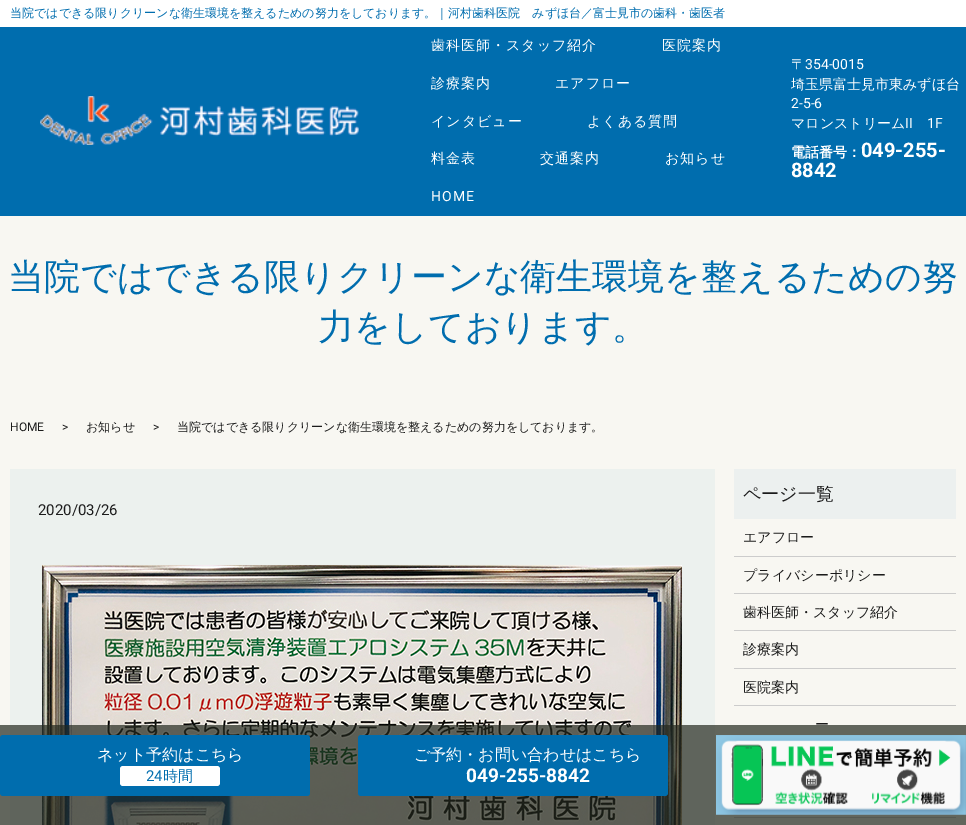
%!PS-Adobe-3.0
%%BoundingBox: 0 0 966 825
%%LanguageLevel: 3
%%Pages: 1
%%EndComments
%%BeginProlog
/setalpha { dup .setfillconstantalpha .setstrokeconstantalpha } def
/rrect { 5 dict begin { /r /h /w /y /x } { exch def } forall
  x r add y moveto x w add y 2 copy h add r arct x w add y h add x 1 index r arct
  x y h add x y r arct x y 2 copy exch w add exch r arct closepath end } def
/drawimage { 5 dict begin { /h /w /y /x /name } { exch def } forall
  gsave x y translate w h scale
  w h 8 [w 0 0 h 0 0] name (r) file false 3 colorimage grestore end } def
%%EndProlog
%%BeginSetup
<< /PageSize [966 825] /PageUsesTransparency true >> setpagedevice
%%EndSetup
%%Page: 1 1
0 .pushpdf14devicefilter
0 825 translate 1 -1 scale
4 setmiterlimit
0.973 0.969 0.949 setrgbcolor
0 0 966 825 rectfill
0 0.427 0.682 setrgbcolor
0 27 966 189 rectfill
1 setgray
0 0 966 27 rectfill
(images/1.raw) 40 96 319 49 drawimage
0.925 0.945 0.933 setrgbcolor
10 469 705 356 rectfill
(images/2.raw) 42 565 640 260 drawimage
0.925 0.941 0.937 setrgbcolor
734 469 222 50 rectfill
0.8 setgray
734 556 222 1 rectfill
734 593 222 1 rectfill
734 630 222 1 rectfill
734 668 222 1 rectfill
734 705 222 1 rectfill
734 817 222 1 rectfill
0.7 setalpha
0.137 0.157 0.118 setrgbcolor
0 725 966 100 rectfill
1 setalpha
0 0.427 0.682 setrgbcolor
0 735 310 61 3 rrect fill
1 setgray
120 766 100 20 3 rrect fill
0 0.427 0.682 setrgbcolor
358 735 310 61 3 rrect fill
(images/3.raw) 716 735 250 80 drawimage
/WenQuanYiZenHei-Medium [12 0 0 -12 0 0] selectfont
10 17 moveto (当院ではできる限りクリーンな衛生環境を整えるための努力をしております。｜河村歯科医院　みずほ台／富士見市の歯科・歯医者) show
/WenQuanYiZenHei-Medium [14 0 0 -14 0 0] selectfont
1 setgray
431 50 moveto 1 0 (歯科医師・スタッフ紹介) ashow
662 50 moveto 1 0 (医院案内) ashow
431 88 moveto 1 0 (診療案内) ashow
555 88 moveto 1 0 (エアフロー) ashow
431 126 moveto 1 0 (インタビュー) ashow
587 126 moveto 1 0 (よくある質問) ashow
431 163 moveto 1 0 (料金表) ashow
540 163 moveto 1 0 (交通案内) ashow
665 163 moveto 1 0 (お知らせ) ashow
/Roboto-Regular [14 0 0 -14 0 0] selectfont
431 201 moveto 1 0 (HOME) ashow
/WenQuanYiZenHei-Medium [14 0 0 -14 0 0] selectfont
791 69 moveto (〒) show
/Roboto-Regular [14 0 0 -14 0 0] selectfont
805 69 moveto (354-0015) show
/WenQuanYiZenHei-Medium [14 0 0 -14 0 0] selectfont
791 89 moveto (埼玉県富士見市東みずほ台) show
/Roboto-Regular [14 0 0 -14 0 0] selectfont
791 108 moveto (2-5-6) show
/WenQuanYiZenHei-Medium [14 0 0 -14 0 0] selectfont
791 128 moveto (マロンストリーム) show
/Roboto-Regular [14 0 0 -14 0 0] selectfont
905 128 moveto (II) show
927 128 moveto (1F) show
/WenQuanYiZenHei-Bold [14 0 0 -14 0 0] selectfont
791 157 moveto (電話番号：) show
/Roboto-Bold [20 0 0 -20 0 0] selectfont
861 157 moveto (049-255-) show
791 177 moveto (8842) show
/WenQuanYiZenHei-Medium [36 0 0 -36 0 0] selectfont
0 0.427 0.682 setrgbcolor
8 289 moveto (当院ではできる限りクリーンな衛生環境を整えるための努) show
318 339 moveto (力をしております。) show
/Roboto-Regular [12 0 0 -12 0 0] selectfont
0.106 setgray
10 431 moveto (HOME) show
62 431 moveto (>) show
/WenQuanYiZenHei-Medium [12 0 0 -12 0 0] selectfont
86 431 moveto (お知らせ) show
/Roboto-Regular [12 0 0 -12 0 0] selectfont
153 431 moveto (>) show
/WenQuanYiZenHei-Medium [12 0 0 -12 0 0] selectfont
177 431 moveto (当院ではできる限りクリーンな衛生環境を整えるための努力をしております。) show
/Roboto-Regular [15 0 0 -15 0 0] selectfont
38 515 moveto (2020/03/26) show
/WenQuanYiZenHei-Medium [18 0 0 -18 0 0] selectfont
743 500 moveto (ページ一覧) show
/WenQuanYiZenHei-Medium [14 0 0 -14 0 0] selectfont
743 542 moveto (エアフロー) show
743 580 moveto (プライバシーポリシー) show
743 617 moveto (歯科医師・スタッフ紹介) show
743 654 moveto (診療案内) show
743 692 moveto (医院案内) show
815 729 moveto (ー) show
/WenQuanYiZenHei-Medium [16 0 0 -16 0 0] selectfont
1 setgray
97 760 moveto (ネット予約はこちら) show
/Roboto-Regular [15 0 0 -15 0 0] selectfont
0 0.427 0.682 setrgbcolor
146 781 moveto (24) show
/WenQuanYiZenHei-Medium [15 0 0 -15 0 0] selectfont
163 781 moveto (時間) show
/WenQuanYiZenHei-Medium [16 0 0 -16 0 0] selectfont
1 setgray
414 760 moveto (ご予約・お問い合わせはこちら) show
/Roboto-Bold [19 0 0 -19 0 0] selectfont
466 782 moveto (049-255-8842) show
.poppdf14devicefilter showpage
%%EOF
